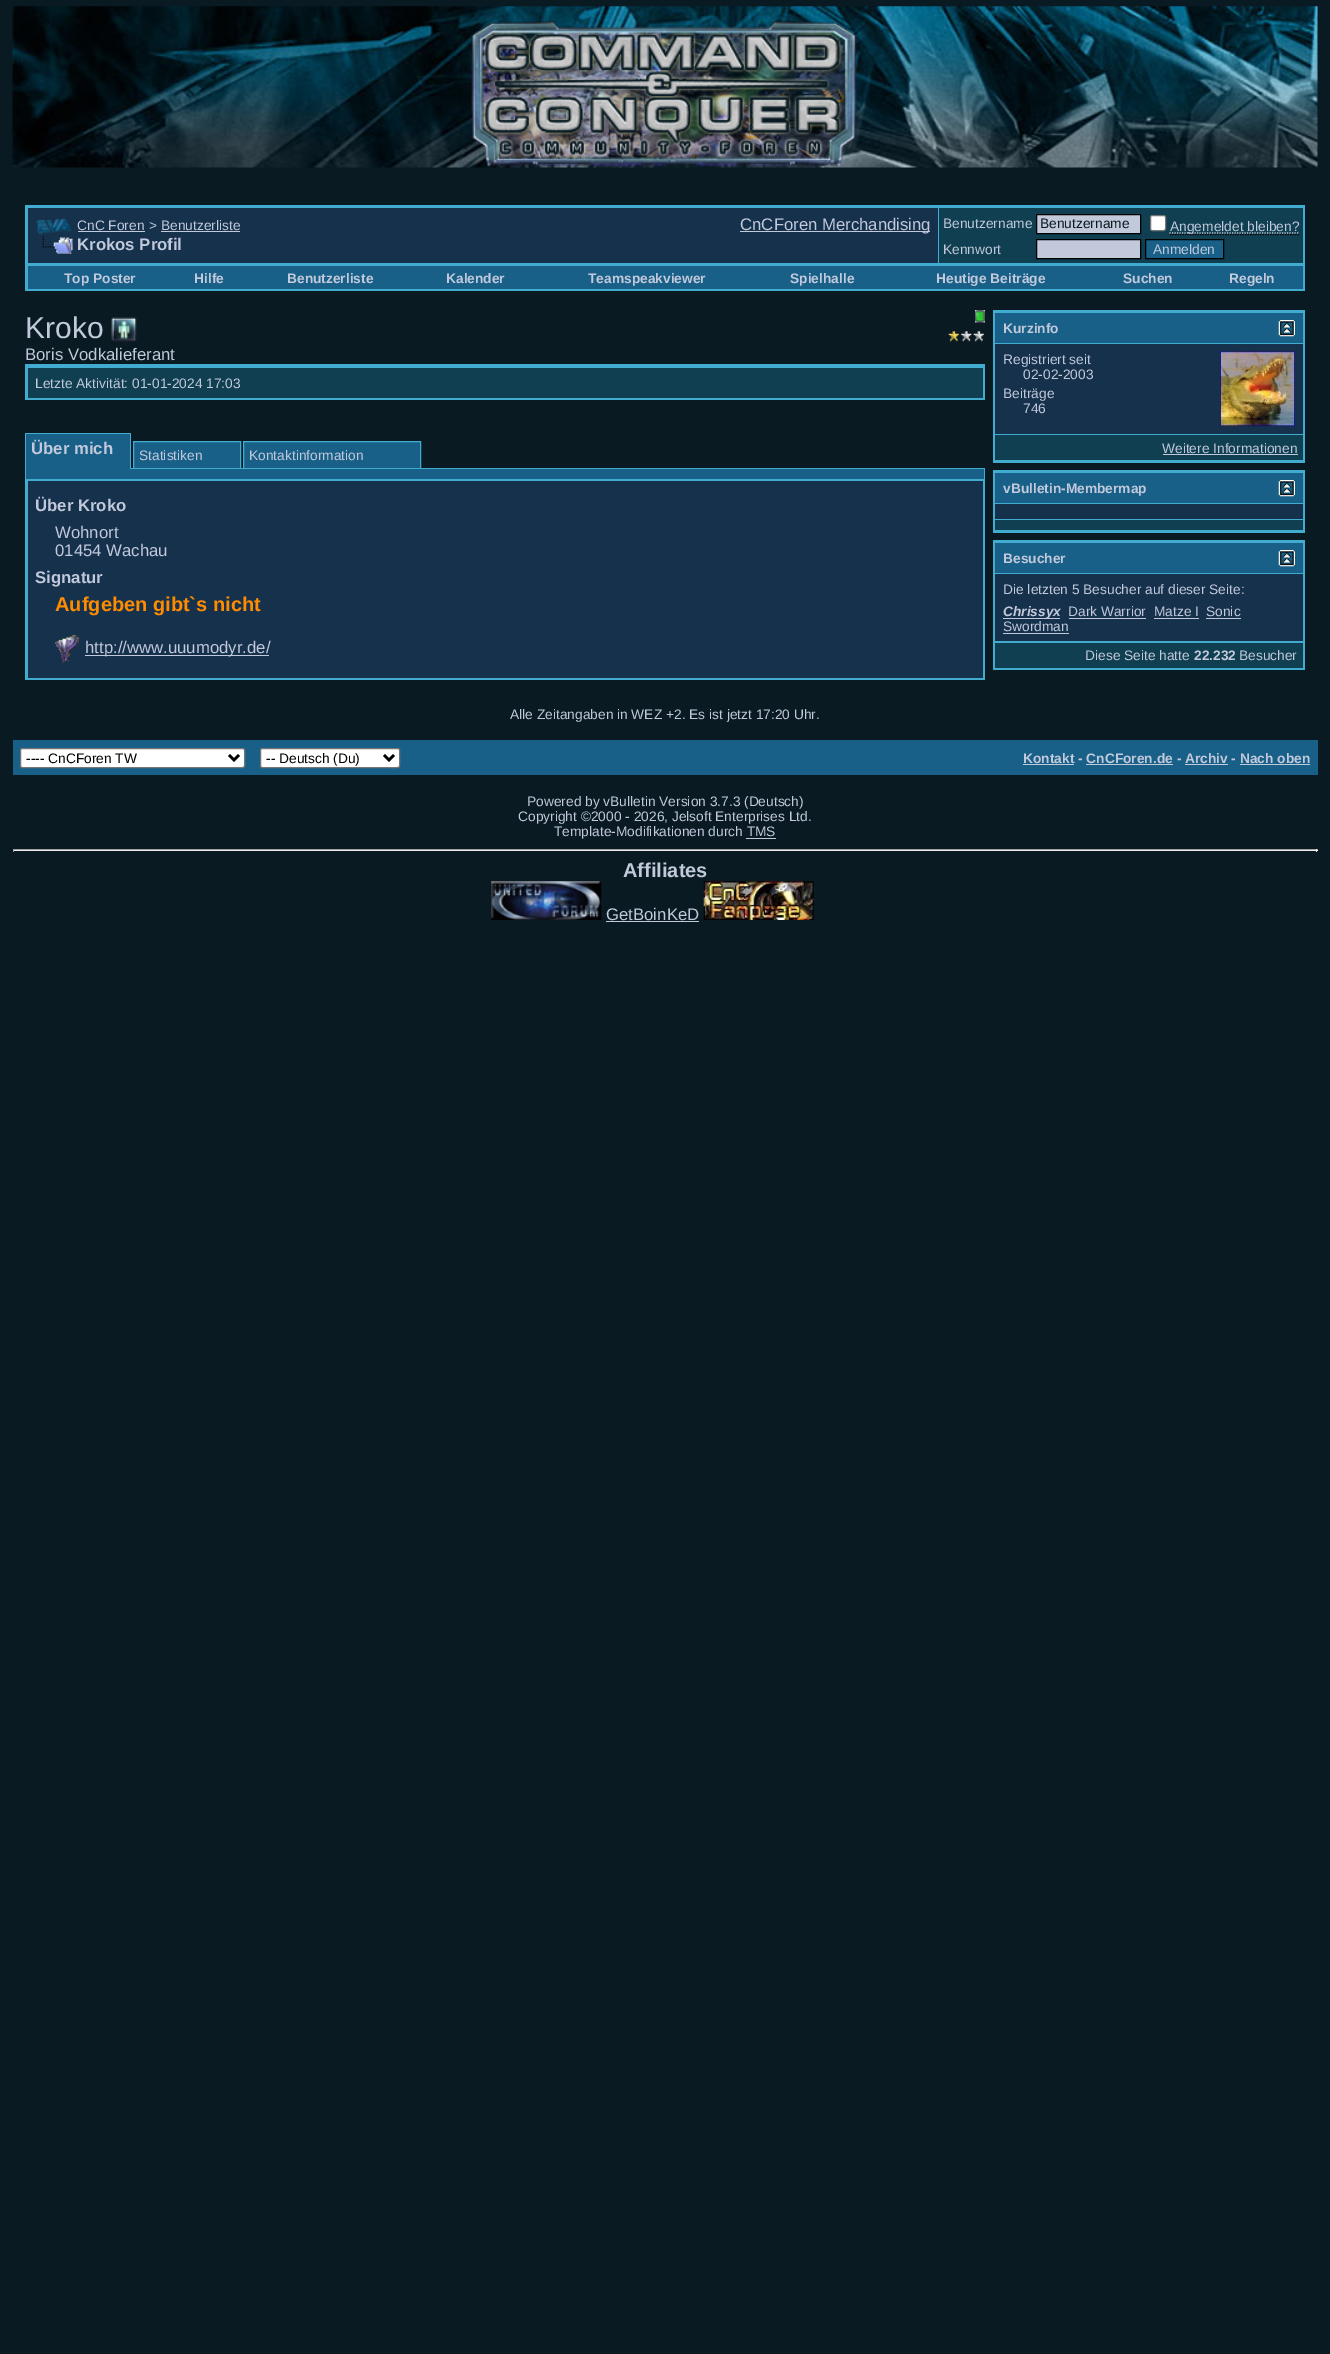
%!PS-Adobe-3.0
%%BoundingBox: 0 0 1330 2354
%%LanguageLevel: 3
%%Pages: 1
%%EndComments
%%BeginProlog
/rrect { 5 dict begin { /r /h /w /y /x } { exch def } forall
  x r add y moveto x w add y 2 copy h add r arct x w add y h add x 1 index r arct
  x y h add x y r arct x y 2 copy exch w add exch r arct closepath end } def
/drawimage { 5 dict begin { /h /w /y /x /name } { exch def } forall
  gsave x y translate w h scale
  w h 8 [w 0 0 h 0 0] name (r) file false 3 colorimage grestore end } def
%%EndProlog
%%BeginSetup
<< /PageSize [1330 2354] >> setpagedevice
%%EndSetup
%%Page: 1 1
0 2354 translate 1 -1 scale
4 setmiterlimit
0.035 0.102 0.133 setrgbcolor
0 0 1330 2354 rectfill
(images/1.raw) 12 6 1306 162 drawimage
(images/2.raw) 471 12 386 155 drawimage
0.255 0.675 0.816 setrgbcolor
25 205 1280 60 rectfill
0.086 0.192 0.298 setrgbcolor
28 208 910 55 rectfill
(images/3.raw) 36 218 36 16 drawimage
0.757 0.788 0.859 setrgbcolor
78 231 67 1 rectfill
161 231 79 1 rectfill
(images/4.raw) 42 236 31 18 drawimage
740 231 190 1 rectfill
0.063 0.247 0.318 setrgbcolor
939 208 364 55 rectfill
0.757 0.788 0.859 setrgbcolor
newpath 1036.5 214.5 moveto 1140.5 214.5 lineto 1140.5 233.5 lineto 1036.5 233.5 lineto closepath gsave fill grestore
0 setgray
stroke
1 setgray
1150.5 215.5 15 15 2 rrect gsave fill grestore
0.463 setgray
stroke
0 setgray
1.2 setlinewidth
[1.25 1.25] 0 setdash
newpath 1170 234.5 moveto 1299 234.5 lineto stroke
0.757 0.788 0.859 setrgbcolor
newpath 1169.5 233 moveto 1299 233 lineto stroke
newpath 1036.5 239.5 moveto 1140.5 239.5 lineto 1140.5 258.5 lineto 1036.5 258.5 lineto closepath gsave fill grestore
0 setgray
1 setlinewidth
[] 0 setdash
stroke
0.094 0.376 0.533 setrgbcolor
newpath 1145.5 239.5 moveto 1223.5 239.5 lineto 1223.5 258.5 lineto 1145.5 258.5 lineto closepath gsave fill grestore
0 setgray
stroke
0.255 0.675 0.816 setrgbcolor
26 265 1278 25 rectfill
1304 265 1 26 rectfill
25 290 1280 1 rectfill
25 265 1 26 rectfill
0.094 0.376 0.533 setrgbcolor
28 266 1275 23 rectfill
(images/5.raw) 111 317 26 25 drawimage
(images/6.raw) 975 310 10 13 drawimage
(images/7.raw) 948 331 36 11 drawimage
0.255 0.675 0.816 setrgbcolor
25 364 960 36 rectfill
0.063 0.247 0.318 setrgbcolor
28 368 955 30 rectfill
0.094 0.376 0.533 setrgbcolor
26 434 104 35 rectfill
0.255 0.675 0.816 setrgbcolor
25 433 106 1 rectfill
130 433 1 36 rectfill
25 468 1 11 rectfill
25 433 1 36 rectfill
131 468 854 1 rectfill
0.094 0.376 0.533 setrgbcolor
newpath 133.5 441.5 moveto 240.5 441.5 lineto 240.5 468.5 lineto 133.5 468.5 lineto closepath gsave fill grestore
0.255 0.675 0.816 setrgbcolor
stroke
0.094 0.376 0.533 setrgbcolor
newpath 243.5 441.5 moveto 420.5 441.5 lineto 420.5 468.5 lineto 243.5 468.5 lineto closepath gsave fill grestore
0.255 0.675 0.816 setrgbcolor
stroke
0.094 0.376 0.533 setrgbcolor
26 469 958 10 rectfill
0.255 0.675 0.816 setrgbcolor
984 468 1 11 rectfill
25 479 960 201 rectfill
0.086 0.192 0.298 setrgbcolor
28 481 955 197 rectfill
(images/8.raw) 55 635 24 28 drawimage
0.757 0.788 0.859 setrgbcolor
85 655 184 1 rectfill
0.255 0.675 0.816 setrgbcolor
993 310 312 153 rectfill
0.094 0.376 0.533 setrgbcolor
995 313 308 30 rectfill
(images/9.raw) 1278 320 17 17 drawimage
0.086 0.192 0.298 setrgbcolor
995 344 308 90 rectfill
(images/10.raw) 1220 351 75 76 drawimage
0.063 0.247 0.318 setrgbcolor
995 435 308 25 rectfill
0.757 0.788 0.859 setrgbcolor
1163 454 135 1 rectfill
0.255 0.675 0.816 setrgbcolor
993 470 312 63 rectfill
0.094 0.376 0.533 setrgbcolor
995 473 308 30 rectfill
(images/9.raw) 1278 480 17 17 drawimage
0.086 0.192 0.298 setrgbcolor
995 504 308 15 rectfill
0.063 0.247 0.318 setrgbcolor
995 520 308 10 rectfill
0.255 0.675 0.816 setrgbcolor
993 540 312 130 rectfill
0.094 0.376 0.533 setrgbcolor
995 543 308 30 rectfill
(images/9.raw) 1278 550 17 17 drawimage
0.086 0.192 0.298 setrgbcolor
995 574 308 67 rectfill
0.757 0.788 0.859 setrgbcolor
1003 618 57 1 rectfill
1069 618 77 1 rectfill
1154 618 45 1 rectfill
1206 618 35 1 rectfill
1003 633 66 1 rectfill
0.063 0.247 0.318 setrgbcolor
995 643 308 25 rectfill
0.094 0.376 0.533 setrgbcolor
13 740 1305 35 rectfill
1 setgray
20.5 748.5 224 19 2 rrect gsave fill grestore
0.463 setgray
stroke
0 setgray
2.5 setlinewidth
newpath 229 755 moveto 234 760 lineto 239 755 lineto stroke
1 setgray
260.5 748.5 139 19 2 rrect gsave fill grestore
0.463 setgray
1 setlinewidth
stroke
0 setgray
2.5 setlinewidth
newpath 384 755 moveto 389 760 lineto 394 755 lineto stroke
0.757 0.788 0.859 setrgbcolor
1023 764 51 1 rectfill
1086 764 87 1 rectfill
1185 764 43 1 rectfill
1240 764 70 1 rectfill
746 838 30 1 rectfill
0.624 setgray
13 849 1305 1 rectfill
0.933 setgray
1316 849 1 3 rectfill
13 850 1305 1 rectfill
0.624 setgray
13 849 1 3 rectfill
(images/11.raw) 491 881 111 39 drawimage
0.757 0.788 0.859 setrgbcolor
606 921 93 1 rectfill
(images/12.raw) 703 881 111 39 drawimage
/LiberationSans-Regular [13.75 0 0 -13.75 0 0] selectfont
77 230 moveto (CnC Foren) show
149 230 moveto (> Benutzerliste) show
/LiberationSans-Bold [16.75 0 0 -16.75 0 0] selectfont
77 250 moveto (Krokos Profil) show
/LiberationSans-Regular [16.75 0 0 -16.75 0 0] selectfont
740 230 moveto (CnCForen Merchandising) show
/LiberationSans-Regular [13.75 0 0 -13.75 0 0] selectfont
943 228 moveto (Benutzername) show
0.035 0.102 0.133 setrgbcolor
1040 228 moveto (Benutzername) show
0.757 0.788 0.859 setrgbcolor
1170 231 moveto (Angemeldet bleiben?) show
943 254 moveto (Kennwort) show
1153 254 moveto (Anmelden) show
/LiberationSans-Bold [13.75 0 0 -13.75 0 0] selectfont
64 283 moveto (Top Poster) show
194 283 moveto (Hilfe) show
287 283 moveto (Benutzerliste) show
446 283 moveto (Kalender) show
588 283 moveto (Teamspeakviewer) show
790 283 moveto (Spielhalle) show
936 283 moveto (Heutige Beiträge) show
1123 283 moveto (Suchen) show
1229 283 moveto (Regeln) show
/LiberationSans-Regular [30 0 0 -30 0 0] selectfont
25 338 moveto (Kroko) show
/LiberationSans-Regular [16.75 0 0 -16.75 0 0] selectfont
25 360 moveto (Boris Vodkalieferant) show
/LiberationSans-Regular [13.75 0 0 -13.75 0 0] selectfont
35 388 moveto (Letzte Aktivität: 01-01-2024 17:03) show
/LiberationSans-Bold [16.75 0 0 -16.75 0 0] selectfont
31 454 moveto (Über mich) show
/LiberationSans-Regular [13.75 0 0 -13.75 0 0] selectfont
139 460 moveto (Statistiken) show
249 460 moveto (Kontaktinformation) show
/LiberationSans-Bold [16.75 0 0 -16.75 0 0] selectfont
35 511 moveto (Über Kroko) show
/LiberationSans-Regular [16.75 0 0 -16.75 0 0] selectfont
55 538 moveto (Wohnort) show
55 556 moveto (01454 Wachau) show
/LiberationSans-Bold [16.75 0 0 -16.75 0 0] selectfont
35 583 moveto (Signatur) show
/LiberationSans-Bold [20 0 0 -20 0 0] selectfont
1 0.549 0 setrgbcolor
55 611 moveto (Aufgeben gibt`s nicht) show
/LiberationSans-Regular [16.75 0 0 -16.75 0 0] selectfont
0.757 0.788 0.859 setrgbcolor
85 653 moveto (http://www.uuumodyr.de/) show
/LiberationSans-Bold [13.75 0 0 -13.75 0 0] selectfont
1003 333 moveto (Kurzinfo) show
/LiberationSans-Regular [13.75 0 0 -13.75 0 0] selectfont
1003 364 moveto (Registriert seit) show
1023 379 moveto (02-02-2003) show
1003 398 moveto (Beiträge) show
1023 413 moveto (746) show
1162 453 moveto (Weitere Informationen) show
/LiberationSans-Bold [13.75 0 0 -13.75 0 0] selectfont
1003 493 moveto (vBulletin-Membermap) show
1003 563 moveto (Besucher) show
/LiberationSans-Regular [13.75 0 0 -13.75 0 0] selectfont
1003 594 moveto (Die letzten 5 Besucher auf dieser Seite:) show
/LiberationSans-BoldItalic [13.75 0 0 -13.75 0 0] selectfont
1003 616 moveto (Chrissyx) show
/LiberationSans-Regular [13.75 0 0 -13.75 0 0] selectfont
1068 616 moveto (Dark Warrior) show
1154 616 moveto (Matze I) show
1206 616 moveto (Sonic) show
1003 631 moveto (Swordman) show
1085 660 moveto (Diese Seite hatte) show
/LiberationSans-Bold [13.75 0 0 -13.75 0 0] selectfont
1194 660 moveto (22.232) show
/LiberationSans-Regular [13.75 0 0 -13.75 0 0] selectfont
1239 660 moveto (Besucher) show
510 719 moveto (Alle Zeitangaben in WEZ +2. Es ist jetzt 17:20 Uhr.) show
0 setgray
26 763 moveto (---- CnCForen TW) show
266 763 moveto (-- Deutsch \(Du\)) show
/LiberationSans-Bold [13.75 0 0 -13.75 0 0] selectfont
0.757 0.788 0.859 setrgbcolor
1023 763 moveto (Kontakt - CnCForen.de - Archiv - Nach oben) show
/LiberationSans-Regular [13.75 0 0 -13.75 0 0] selectfont
527 806 moveto (Powered by vBulletin Version 3.7.3 \(Deutsch\)) show
518 821 moveto (Copyright ©2000 - 2026, Jelsoft Enterprises Ltd.) show
554 836 moveto (Template-Modifikationen durch TMS) show
/LiberationSans-Bold [20 0 0 -20 0 0] selectfont
623 877 moveto (Affiliates) show
/LiberationSans-Regular [16.75 0 0 -16.75 0 0] selectfont
606 920 moveto (GetBoinKeD) show
showpage
%%EOF
